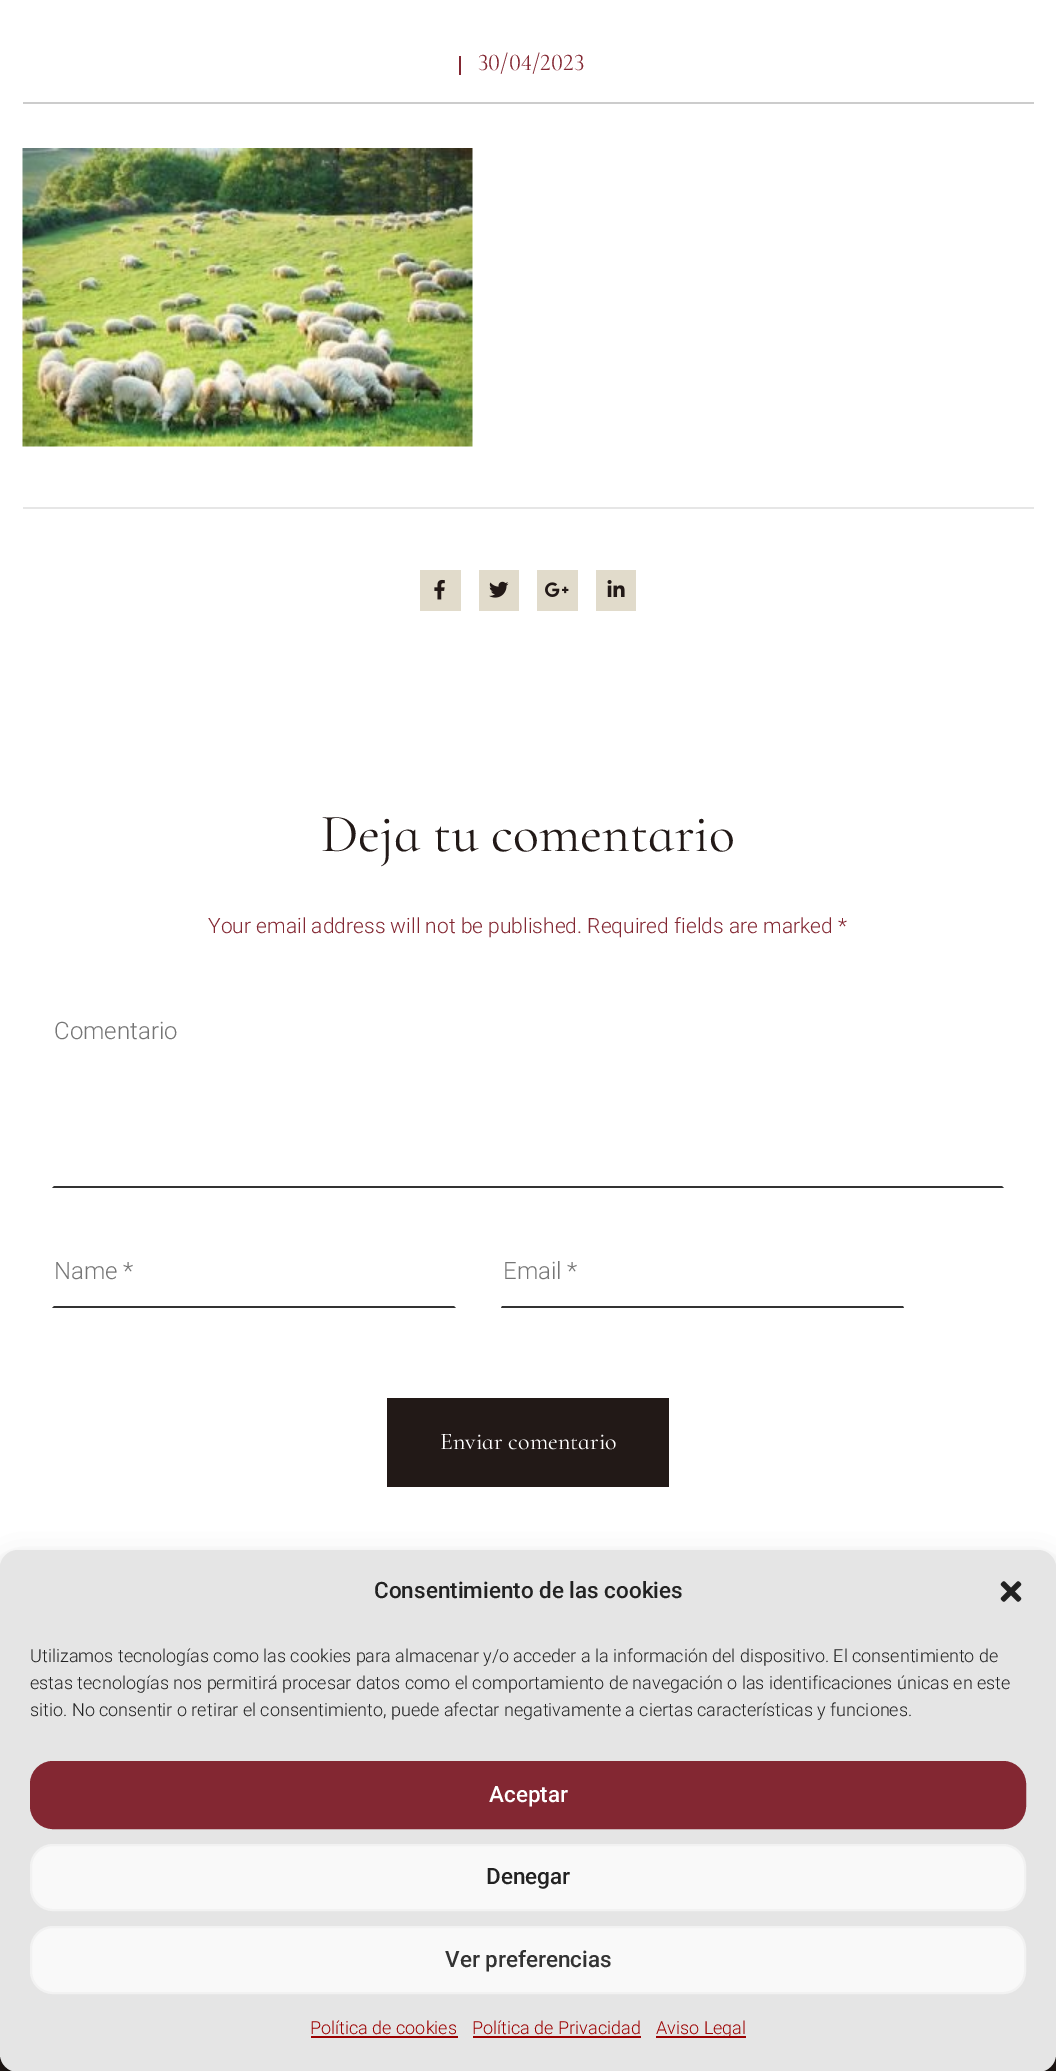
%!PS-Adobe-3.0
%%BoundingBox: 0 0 1056 2071
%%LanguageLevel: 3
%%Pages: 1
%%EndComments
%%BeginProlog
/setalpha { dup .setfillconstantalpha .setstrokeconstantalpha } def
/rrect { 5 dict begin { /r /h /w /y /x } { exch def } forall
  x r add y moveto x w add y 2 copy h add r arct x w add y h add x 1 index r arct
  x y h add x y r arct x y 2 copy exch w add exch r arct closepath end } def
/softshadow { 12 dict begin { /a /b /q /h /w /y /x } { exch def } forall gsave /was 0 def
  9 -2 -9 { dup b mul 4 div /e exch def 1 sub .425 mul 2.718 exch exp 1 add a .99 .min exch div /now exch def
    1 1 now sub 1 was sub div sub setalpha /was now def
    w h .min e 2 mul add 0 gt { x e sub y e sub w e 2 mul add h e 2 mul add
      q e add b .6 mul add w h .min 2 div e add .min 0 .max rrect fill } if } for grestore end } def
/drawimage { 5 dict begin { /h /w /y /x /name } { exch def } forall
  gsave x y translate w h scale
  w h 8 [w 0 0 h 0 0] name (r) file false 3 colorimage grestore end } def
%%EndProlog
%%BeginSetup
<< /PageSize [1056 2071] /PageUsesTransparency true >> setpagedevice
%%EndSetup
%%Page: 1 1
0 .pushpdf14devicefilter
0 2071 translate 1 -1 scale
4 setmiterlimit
1 setgray
0 0 1056 2071 rectfill
0.8 setgray
23 102 1011 2 rectfill
0.514 0.153 0.196 setrgbcolor
459 56 2 19 rectfill
(images/1.raw) 22 148 451 299 drawimage
0.902 setgray
23 507 1011 2 rectfill
0.882 0.859 0.796 setrgbcolor
420 570 41 41 rectfill
(images/2.raw) 434 579 11 21 drawimage
479 570 40 41 rectfill
(images/3.raw) 489 581 20 17 drawimage
537 570 41 41 rectfill
(images/4.raw) 545 582 24 15 drawimage
596 570 40 41 rectfill
(images/5.raw) 607 580 18 17 drawimage
0.2 setgray
newpath 1004 1188 moveto 52 1188 lineto 54 1186 lineto 1002 1186 lineto closepath fill
newpath 456 1308 moveto 52 1308 lineto 54 1306 lineto 454 1306 lineto closepath fill
newpath 904 1308 moveto 501 1308 lineto 502 1306 lineto 903 1306 lineto closepath fill
0.133 0.098 0.09 setrgbcolor
387 1398 282 89 rectfill
0 2054 1056 17 rectfill
0 setgray
0 1559 1056 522 18 4.5 0.23 softshadow
0 1565 1056 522 18 15 0.19 softshadow
0.898 setgray
0 1550 1056 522 18 rrect fill
(images/6.raw) 1000 1581 22 21 drawimage
0.514 0.153 0.196 setrgbcolor
31 1762 994 66 22 rrect gsave fill grestore
2 setlinewidth
stroke
0.976 setgray
31 1845 994 65 22 rrect gsave fill grestore
0.949 setgray
stroke
0.976 setgray
31 1927 994 66 22 rrect gsave fill grestore
0.949 setgray
stroke
0.608 0 0 setrgbcolor
311 2036 147 2 rectfill
473 2036 168 2 rectfill
656 2036 90 2 rectfill
/CormorantInfant-Light [24 0 0 -24 0 0] selectfont
0.514 0.153 0.196 setrgbcolor
478 70 moveto (30/04/2023) show
/CormorantInfant-Light [54 0 0 -54 0 0] selectfont
0.133 0.098 0.09 setrgbcolor
321 851 moveto (Deja tu comentario) show
/Roboto-Light [21 0 0 -21 0 0] selectfont
0.514 0.153 0.196 setrgbcolor
208 933 moveto (Your email address will not be published. Required fields are marked *) show
/Roboto-Light [24 0 0 -24 0 0] selectfont
0.459 setgray
54 1039 moveto (Comentario) show
54 1279 moveto (Name *) show
503 1279 moveto (Email *) show
/CormorantInfant-Light [24 0 0 -24 0 0] selectfont
1 setgray
440 1449 moveto (Enviar comentario) show
/Roboto-Medium [22.5 0 0 -22.5 0 0] selectfont
0.133 setgray
374 1598 moveto (Consentimiento de las cookies) show
/Roboto-Light [18 0 0 -18 0 0] selectfont
30 1662 moveto (Utilizamos tecnologías como las cookies para almacenar y/o acceder a la información del dispositivo. El consentimiento de) show
30 1689 moveto (estas tecnologías nos permitirá procesar datos como el comportamiento de navegación o las identificaciones únicas en este) show
30 1716 moveto (sitio. No consentir o retirar el consentimiento, puede afectar negativamente a ciertas características y funciones.) show
/Roboto-Medium [22.5 0 0 -22.5 0 0] selectfont
1 setgray
489 1802 moveto (Aceptar) show
0.133 setgray
486 1884 moveto (Denegar) show
0.2 setgray
445 1967 moveto (Ver preferencias) show
/Roboto-Light [18 0 0 -18 0 0] selectfont
0.608 0 0 setrgbcolor
310 2034 moveto (Política de cookies) show
472 2034 moveto (Política de Privacidad) show
656 2034 moveto (Aviso Legal) show
.poppdf14devicefilter showpage
%%EOF
